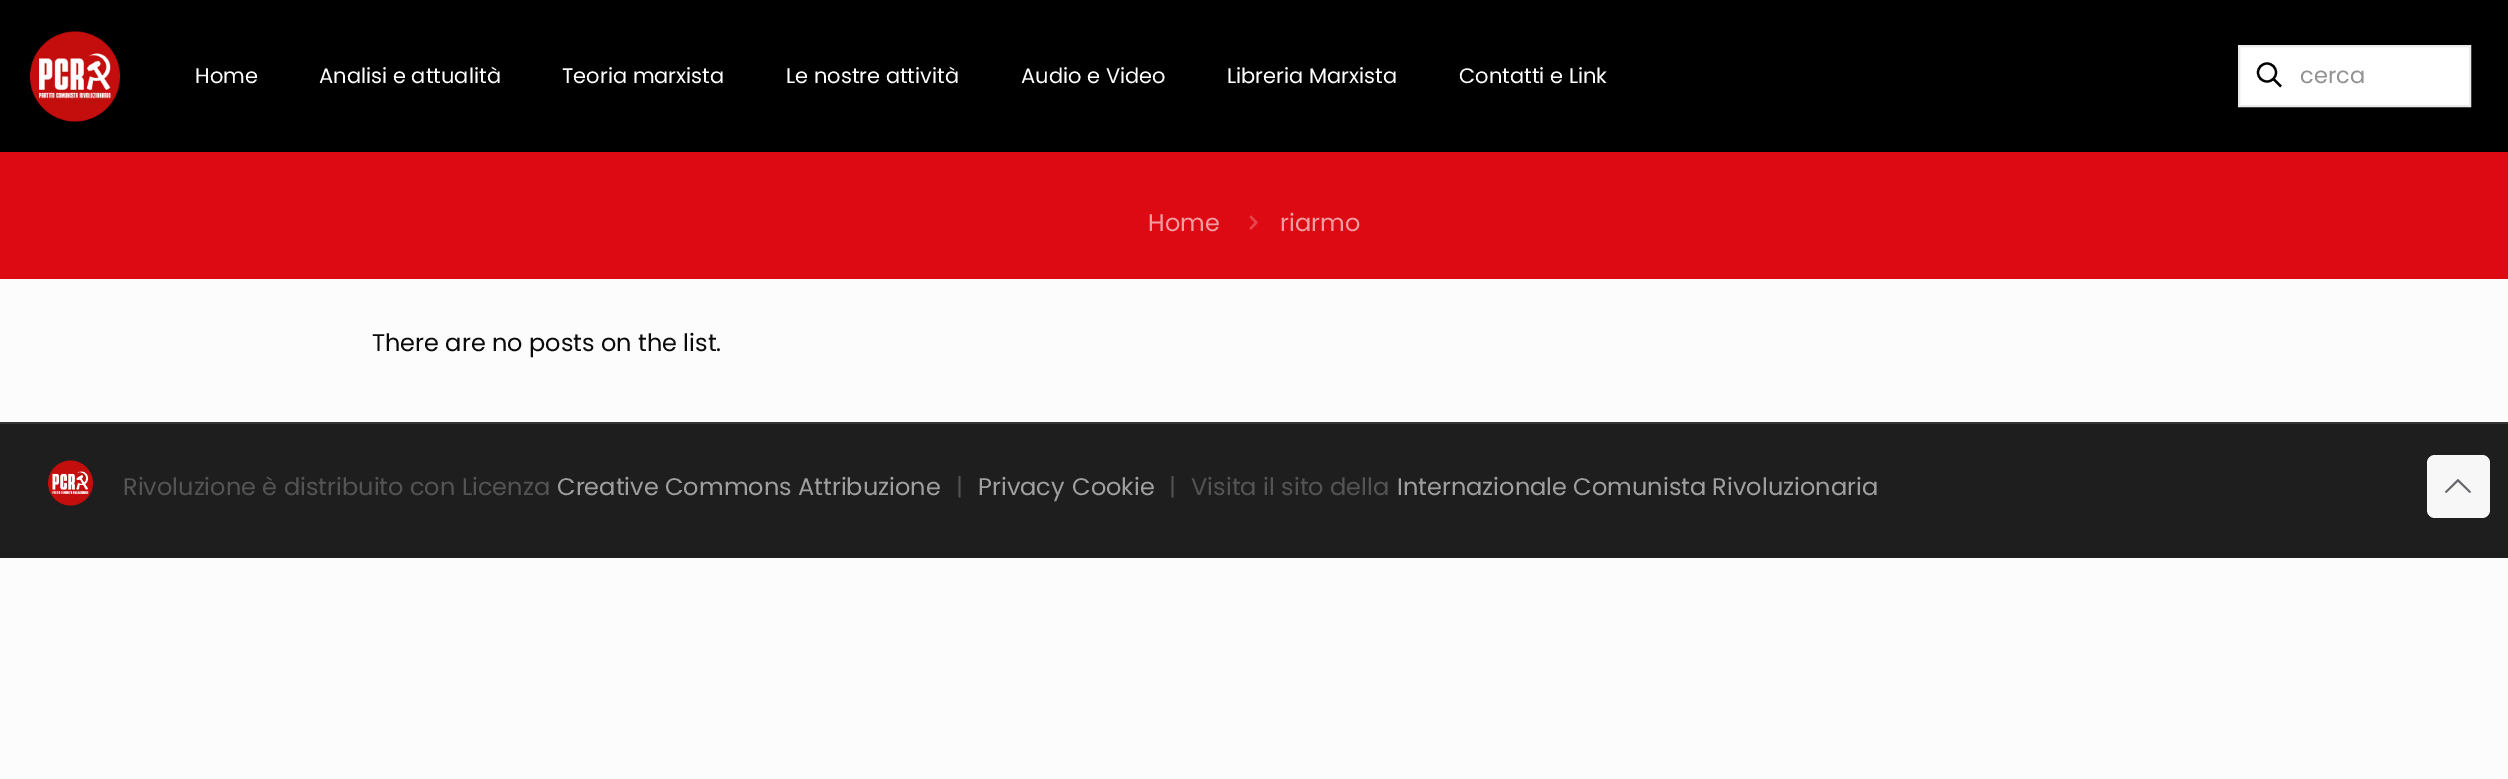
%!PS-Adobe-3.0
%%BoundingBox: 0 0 2508 779
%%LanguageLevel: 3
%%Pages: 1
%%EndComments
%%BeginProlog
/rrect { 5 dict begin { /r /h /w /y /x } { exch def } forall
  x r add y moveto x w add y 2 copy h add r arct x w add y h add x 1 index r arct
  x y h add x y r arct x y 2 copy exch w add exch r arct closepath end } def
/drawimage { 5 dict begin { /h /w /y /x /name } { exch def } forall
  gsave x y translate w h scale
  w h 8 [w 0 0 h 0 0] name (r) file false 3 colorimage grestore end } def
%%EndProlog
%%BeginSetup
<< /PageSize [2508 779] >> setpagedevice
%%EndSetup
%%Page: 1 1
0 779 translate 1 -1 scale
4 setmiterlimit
0.988 setgray
0 0 2508 779 rectfill
0 setgray
0 0 2508 152 rectfill
(images/1.raw) 30 31 90 91 drawimage
1 setgray
newpath 2239 46 moveto 2470 46 lineto 2470 106 lineto 2239 106 lineto closepath gsave fill grestore
0.922 setgray
2 setlinewidth
stroke
0 setgray
2.2 setlinewidth
newpath 2267 72.5 9 0 360 arc closepath stroke
newpath 2273.5 79 moveto 2281 86.5 lineto stroke
0.867 0.039 0.078 setrgbcolor
0 152 2508 127 rectfill
(images/2.raw) 1249 215 9 15 drawimage
0.118 setgray
0 424 2508 134 rectfill
0.208 setgray
0 422 2508 2 rectfill
(images/3.raw) 48 460 45 46 drawimage
0.969 setgray
2427 455 63 63 8 rrect fill
(images/4.raw) 2445 479 26 14 drawimage
/Poppins-Regular [21 0 0 -21 0 0] selectfont
1 setgray
195 83 moveto (Home) show
319 83 moveto (Analisi e attualità) show
562 83 moveto (Teoria marxista) show
786 83 moveto (Le nostre attività) show
1021 83 moveto (Audio e Video) show
1227 83 moveto (Libreria Marxista) show
1459 83 moveto (Contatti e Link) show
/Poppins-Regular [22.5 0 0 -22.5 0 0] selectfont
0.573 setgray
2300 83 moveto (cerca) show
/Poppins-Regular [24 0 0 -24 0 0] selectfont
0.945 0.616 0.631 setrgbcolor
1148 231 moveto (Home) show
1280 231 moveto (riarmo) show
0.039 setgray
372 351 moveto (There are no posts on the list.) show
0.329 setgray
123 495 moveto (Rivoluzione è distribuito con Licenza) show
0.624 setgray
557 495 moveto (Creative Commons Attribuzione) show
0.329 setgray
956 495 moveto (|) show
0.624 setgray
978 495 moveto (Privacy) show
1072 495 moveto (Cookie) show
0.329 setgray
1169 495 moveto (|) show
1191 495 moveto (Visita il sito della) show
0.624 setgray
1397 495 moveto (Internazionale Comunista Rivoluzionaria) show
showpage
%%EOF
